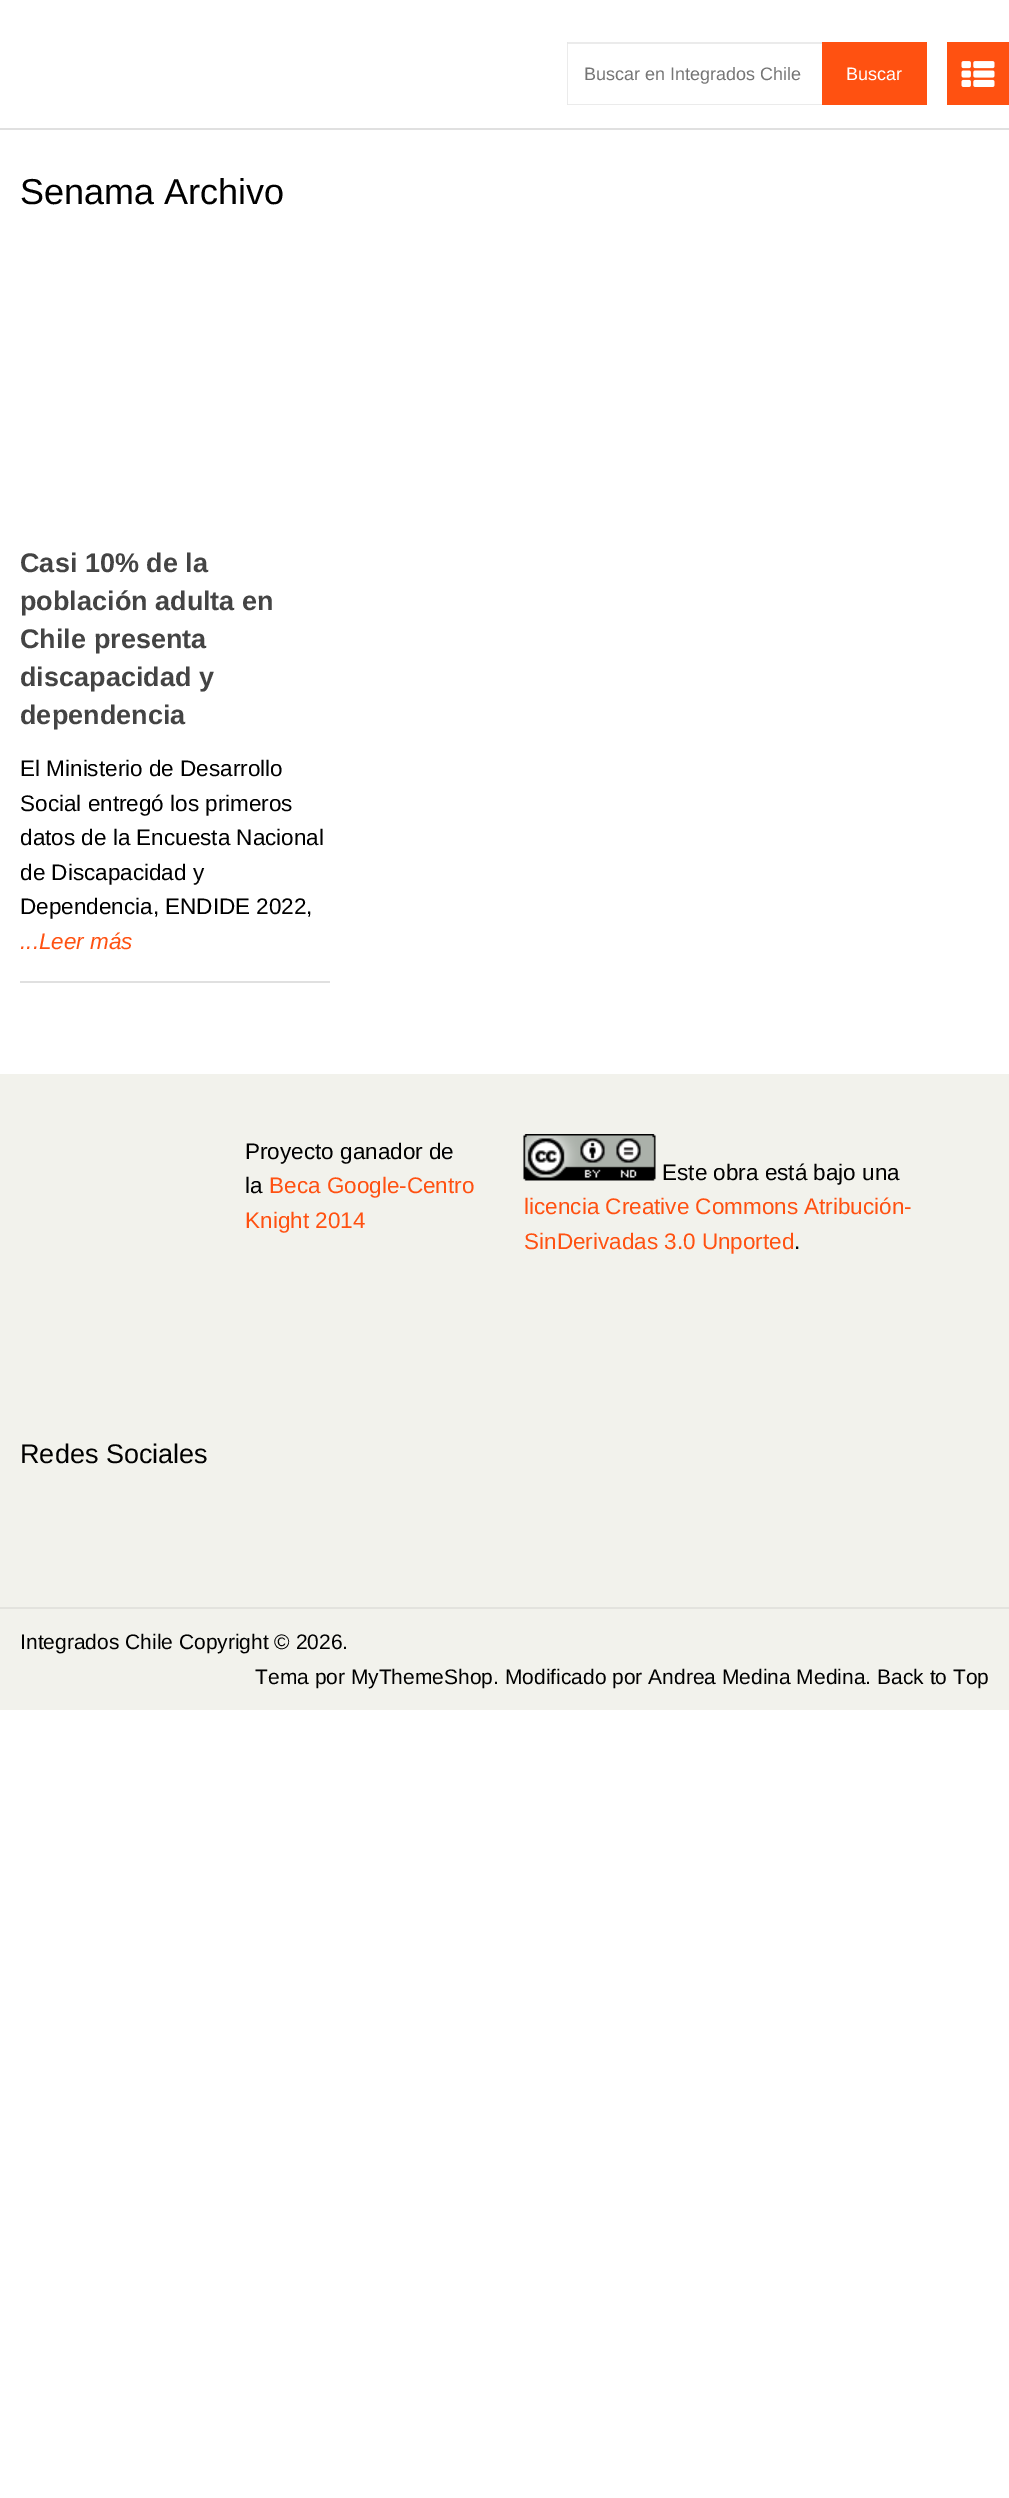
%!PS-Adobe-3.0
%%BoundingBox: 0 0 1009 2498
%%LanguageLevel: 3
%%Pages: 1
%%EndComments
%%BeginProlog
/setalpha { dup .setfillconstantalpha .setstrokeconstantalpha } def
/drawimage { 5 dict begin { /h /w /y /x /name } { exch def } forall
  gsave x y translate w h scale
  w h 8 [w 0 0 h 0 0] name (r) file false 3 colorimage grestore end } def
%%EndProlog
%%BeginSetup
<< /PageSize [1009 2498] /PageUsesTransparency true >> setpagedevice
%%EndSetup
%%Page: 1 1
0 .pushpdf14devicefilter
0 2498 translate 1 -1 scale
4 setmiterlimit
1 setgray
0 0 1009 2498 rectfill
0.878 setgray
0 128 1009 2 rectfill
0.922 setgray
newpath 567 42 moveto 837 42 lineto 837 44 lineto 568 44 lineto closepath fill
newpath 837 105 moveto 567 105 lineto 568 104 lineto 837 104 lineto closepath fill
0.08 setalpha
0 setgray
newpath 567 105 moveto 567 42 lineto 568 44 lineto 568 104 lineto closepath fill
1 setalpha
1 0.318 0.067 setrgbcolor
822 42 105 63 rectfill
947 42 62 63 rectfill
(images/1.raw) 961 61 34 26 drawimage
0.878 setgray
20 981 310 2 rectfill
0.949 0.949 0.925 setrgbcolor
0 1074 1009 636 rectfill
(images/2.raw) 523 1134 133 47 drawimage
0.89 0.89 0.871 setrgbcolor
0 1607 1009 2 rectfill
/LiberationSans-Regular [18 0 0 -18 0 0] selectfont
0.459 setgray
584 80 moveto (Buscar en Integrados Chile) show
1 setgray
846 80 moveto (Buscar) show
/LiberationSans-Regular [36 0 0 -36 0 0] selectfont
0 setgray
20 204 moveto (Senama Archivo) show
/LiberationSans-Bold [27 0 0 -27 0 0] selectfont
0.267 setgray
20 572 moveto (Casi 10% de la) show
20 610 moveto (población adulta en) show
20 648 moveto (Chile presenta) show
20 686 moveto (discapacidad y) show
20 724 moveto (dependencia) show
/LiberationSans-Regular [22.5 0 0 -22.5 0 0] selectfont
0 setgray
20 776 moveto (El Ministerio de Desarrollo) show
20 811 moveto (Social entregó los primeros) show
20 845 moveto (datos de la Encuesta Nacional) show
20 880 moveto (de Discapacidad y) show
20 914 moveto (Dependencia, ENDIDE 2022,) show
/LiberationSans-Italic [22.5 0 0 -22.5 0 0] selectfont
1 0.318 0.067 setrgbcolor
20 949 moveto (...Leer más) show
/LiberationSans-Regular [22.5 0 0 -22.5 0 0] selectfont
0 setgray
245 1159 moveto (Proyecto ganador de) show
245 1193 moveto (la) show
1 0.318 0.067 setrgbcolor
269 1193 moveto (Beca Google-Centro) show
245 1228 moveto (Knight 2014) show
0 setgray
662 1180 moveto (Este obra está bajo una) show
1 0.318 0.067 setrgbcolor
524 1214 moveto (licencia Creative Commons Atribución-) show
524 1249 moveto (SinDerivadas 3.0 Unported) show
0 setgray
794 1249 moveto (.) show
/LiberationSans-Regular [27 0 0 -27 0 0] selectfont
20 1463 moveto (Redes Sociales) show
/LiberationSans-Regular [21 0 0 -21 0 0] selectfont
20 1649 moveto (Integrados Chile Copyright © 2026.) show
255 1684 moveto (Tema por MyThemeShop. Modificado por Andrea Medina Medina. Back to Top) show
.poppdf14devicefilter showpage
%%EOF
